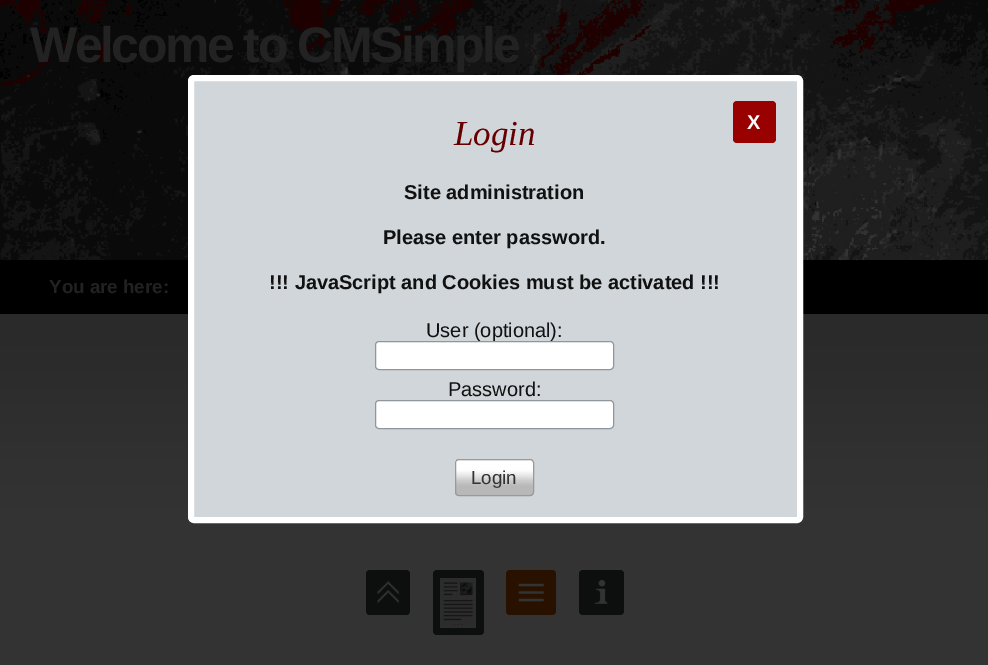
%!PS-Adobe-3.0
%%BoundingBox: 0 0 988 665
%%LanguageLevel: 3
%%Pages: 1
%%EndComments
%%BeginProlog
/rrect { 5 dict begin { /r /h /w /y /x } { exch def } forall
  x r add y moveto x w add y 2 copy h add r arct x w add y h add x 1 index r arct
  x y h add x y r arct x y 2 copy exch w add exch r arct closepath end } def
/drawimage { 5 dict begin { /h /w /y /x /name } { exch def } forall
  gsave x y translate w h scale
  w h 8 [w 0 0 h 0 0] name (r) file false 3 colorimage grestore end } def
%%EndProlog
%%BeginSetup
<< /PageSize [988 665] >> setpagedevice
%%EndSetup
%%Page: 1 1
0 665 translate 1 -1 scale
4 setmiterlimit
0.2 setgray
0 0 988 665 rectfill
(images/1.raw) 0 0 988 260 drawimage
0 setgray
0 260 988 54 rectfill
(images/2.raw) 0 314 988 192 drawimage
0.816 0.839 0.851 setrgbcolor
191 78 609 442 3 rrect gsave fill grestore
1 setgray
6 setlinewidth
stroke
0.6 0 0 setrgbcolor
733 101 43 42 4 rrect fill
1 setgray
375.5 400.5 238 28 3.5 rrect gsave fill grestore
0.565 0.588 0.6 setrgbcolor
1 setlinewidth
stroke
(images/3.raw) 455 459 79 37 drawimage
0.6 setgray
455.5 459.5 78 36 3.5 rrect stroke
0.051 0.059 0.059 setrgbcolor
366 570 44 45 4 rrect fill
(images/4.raw) 377 581 22 22 drawimage
433 570 51 65 4 rrect fill
0.173 setgray
440 578 36 50 rectfill
(images/5.raw) 443 582 30 44 drawimage
0.161 0.067 0 setrgbcolor
506 570 50 45 4 rrect fill
(images/6.raw) 518 583 26 19 drawimage
0.051 0.059 0.059 setrgbcolor
579 570 45 45 4 rrect fill
(images/7.raw) 594 579 14 25 drawimage
/LiberationSans-Bold [50 0 0 -50 0 0] selectfont
0.133 setgray
30 62 moveto -2.5 0 (Welcome to CMSimple) ashow
/LiberationSans-Bold [18.75 0 0 -18.75 0 0] selectfont
49 293 moveto (You are here:) show
/LiberationSerif-Italic [35 0 0 -35 0 0] selectfont
0.4 0 0 setrgbcolor
454 145 moveto (Login) show
/LiberationSans-Bold [20 0 0 -20 0 0] selectfont
1 setgray
747 129 moveto (X) show
0.067 setgray
404 199 moveto (Site administration) show
383 244 moveto (Please enter password.) show
269 289 moveto (!!! JavaScript and Cookies must be activated !!!) show
/LiberationSans-Regular [20 0 0 -20 0 0] selectfont
426 337 moveto (User \(optional\):) show
1 setgray
375.5 341.5 238 28 3.5 rrect gsave fill grestore
0.565 0.588 0.6 setrgbcolor
stroke
0.067 setgray
448 396 moveto (Password:) show
/LiberationSans-Regular [18.75 0 0 -18.75 0 0] selectfont
0.2 setgray
471 484 moveto (Login) show
showpage
%%EOF
